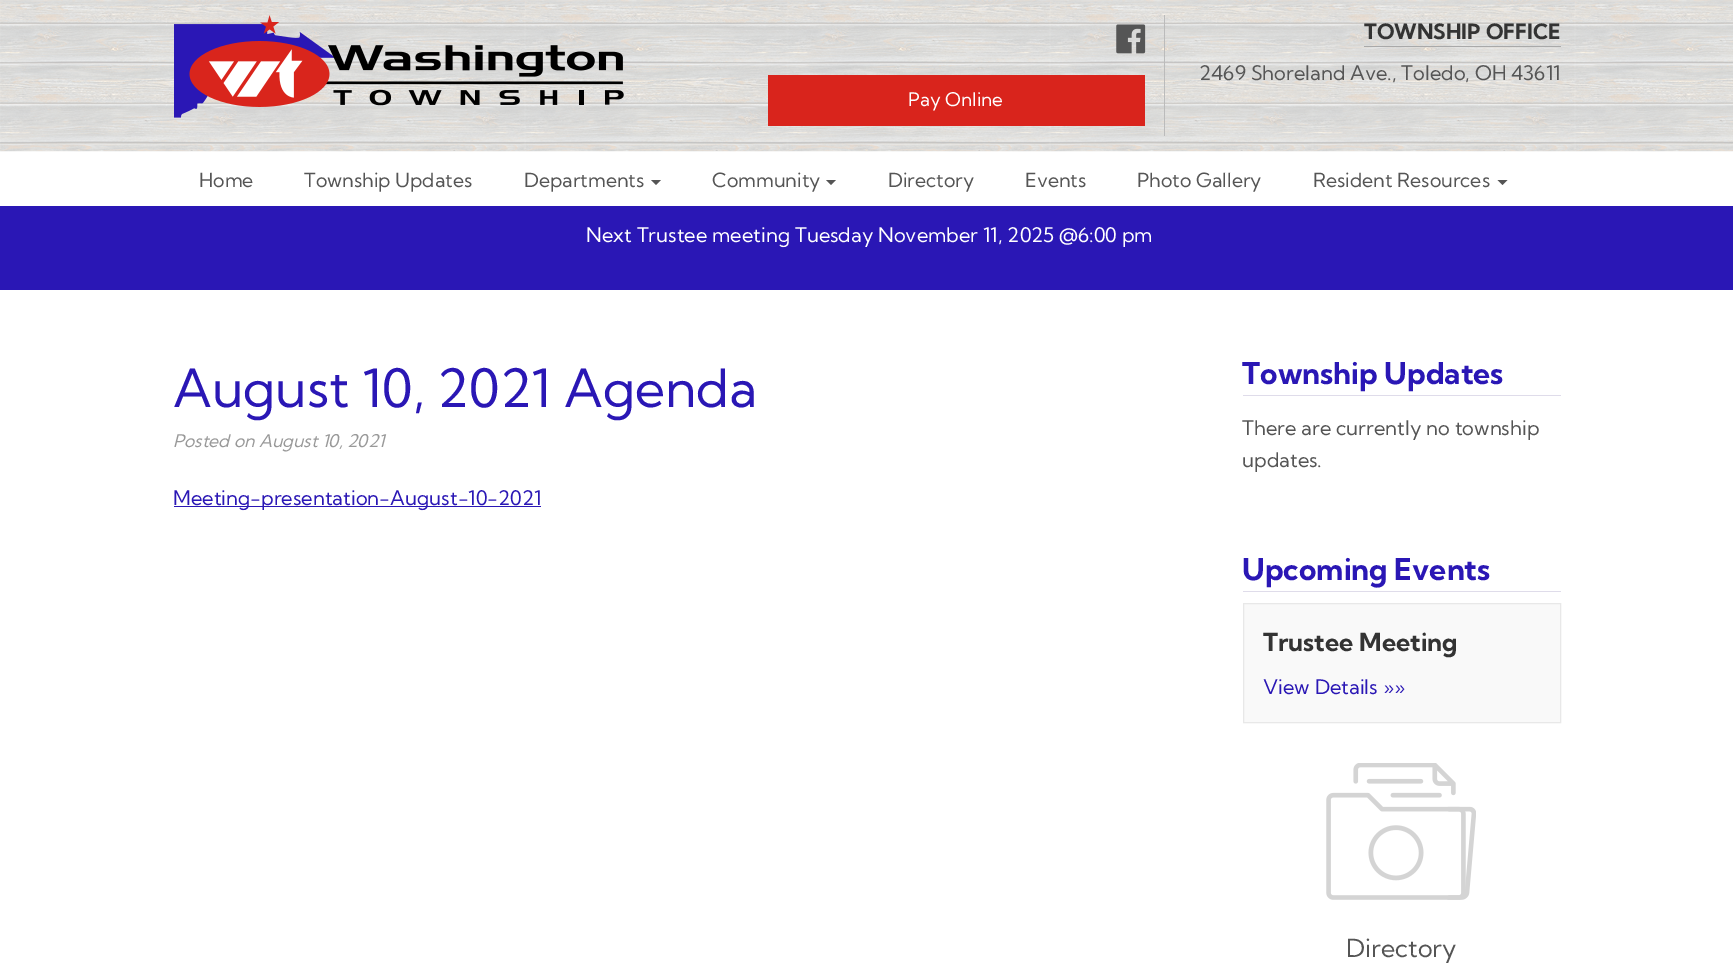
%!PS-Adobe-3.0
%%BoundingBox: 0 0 1733 967
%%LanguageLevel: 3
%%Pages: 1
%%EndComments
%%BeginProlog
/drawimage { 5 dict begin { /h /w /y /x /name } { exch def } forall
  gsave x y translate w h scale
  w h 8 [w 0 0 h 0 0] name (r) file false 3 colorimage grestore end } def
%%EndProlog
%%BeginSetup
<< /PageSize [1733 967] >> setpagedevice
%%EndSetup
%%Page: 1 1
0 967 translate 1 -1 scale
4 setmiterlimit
1 setgray
0 0 1733 967 rectfill
(images/1.raw) 0 0 1733 152 drawimage
(images/2.raw) 174 15 450 103 drawimage
0.733 setgray
1164 15 1 121 rectfill
0.663 setgray
1364 46 197 1 rectfill
(images/3.raw) 1116 24 30 30 drawimage
0.851 0.141 0.11 setrgbcolor
768 75 377 51 rectfill
0.333 setgray
newpath 651 180 moveto 661 180 lineto 656 185 lineto closepath fill
newpath 826 180 moveto 836 180 lineto 831 185 lineto closepath fill
newpath 1497.5 180 moveto 1507.5 180 lineto 1502.5 185 lineto closepath fill
0.165 0.09 0.71 setrgbcolor
0 206 1733 84 rectfill
174 506 367 1 rectfill
0.875 0.863 0.918 setrgbcolor
1243 395 318 1 rectfill
1243 591 318 1 rectfill
0.976 setgray
newpath 1243.5 603.5 moveto 1560.5 603.5 lineto 1560.5 722.5 lineto 1243.5 722.5 lineto closepath gsave fill grestore
0.91 setgray
stroke
(images/4.raw) 1326 763 150 137 drawimage
/KumbhSans-Bold [21 0 0 -21 0 0] selectfont
0.2 setgray
1364 39 moveto (TOWNSHIP OFFICE) show
/KumbhSans-Regular [20 0 0 -20 0 0] selectfont
0.333 setgray
1199 80 moveto (2469 Shoreland Ave., Toledo, OH 43611) show
/KumbhSans-Regular [18.75 0 0 -18.75 0 0] selectfont
1 setgray
908 106 moveto (Pay Online) show
/KumbhSans-Regular [19.5 0 0 -19.5 0 0] selectfont
0.333 setgray
199 187 moveto (Home) show
304 187 moveto (Township Updates) show
524 187 moveto (Departments) show
712 187 moveto (Community) show
888 187 moveto (Directory) show
1025 187 moveto (Events) show
1137 187 moveto (Photo Gallery) show
1313 187 moveto (Resident Resources) show
/KumbhSans-Regular [20 0 0 -20 0 0] selectfont
1 setgray
586 242 moveto (Next Trustee meeting Tuesday November 11, 2025 @6:00 pm) show
/KumbhSans-Regular [52.5 0 0 -52.5 0 0] selectfont
0.165 0.09 0.71 setrgbcolor
173 407 moveto (August 10, 2021 Agenda) show
/KumbhSans-Italic [17.5 0 0 -17.5 0 0] selectfont
0.6 setgray
173 447 moveto (Posted on August 10, 2021) show
/KumbhSans-Regular [20 0 0 -20 0 0] selectfont
0.165 0.09 0.71 setrgbcolor
173 505 moveto (Meeting-presentation-August-10-2021) show
/KumbhSans-Bold [30 0 0 -30 0 0] selectfont
1242 384 moveto (Township Updates) show
/KumbhSans-Regular [20 0 0 -20 0 0] selectfont
0.333 setgray
1242 435 moveto (There are currently no township) show
1242 467 moveto (updates.) show
/KumbhSans-Bold [30 0 0 -30 0 0] selectfont
0.165 0.09 0.71 setrgbcolor
1242 580 moveto (Upcoming Events) show
/KumbhSans-Bold [25 0 0 -25 0 0] selectfont
0.2 setgray
1263 651 moveto (Trustee Meeting) show
/KumbhSans-Regular [20 0 0 -20 0 0] selectfont
0.165 0.09 0.71 setrgbcolor
1263 694 moveto (View Details »») show
/KumbhSans-Regular [25 0 0 -25 0 0] selectfont
0.333 setgray
1346 957 moveto (Directory) show
showpage
%%EOF
